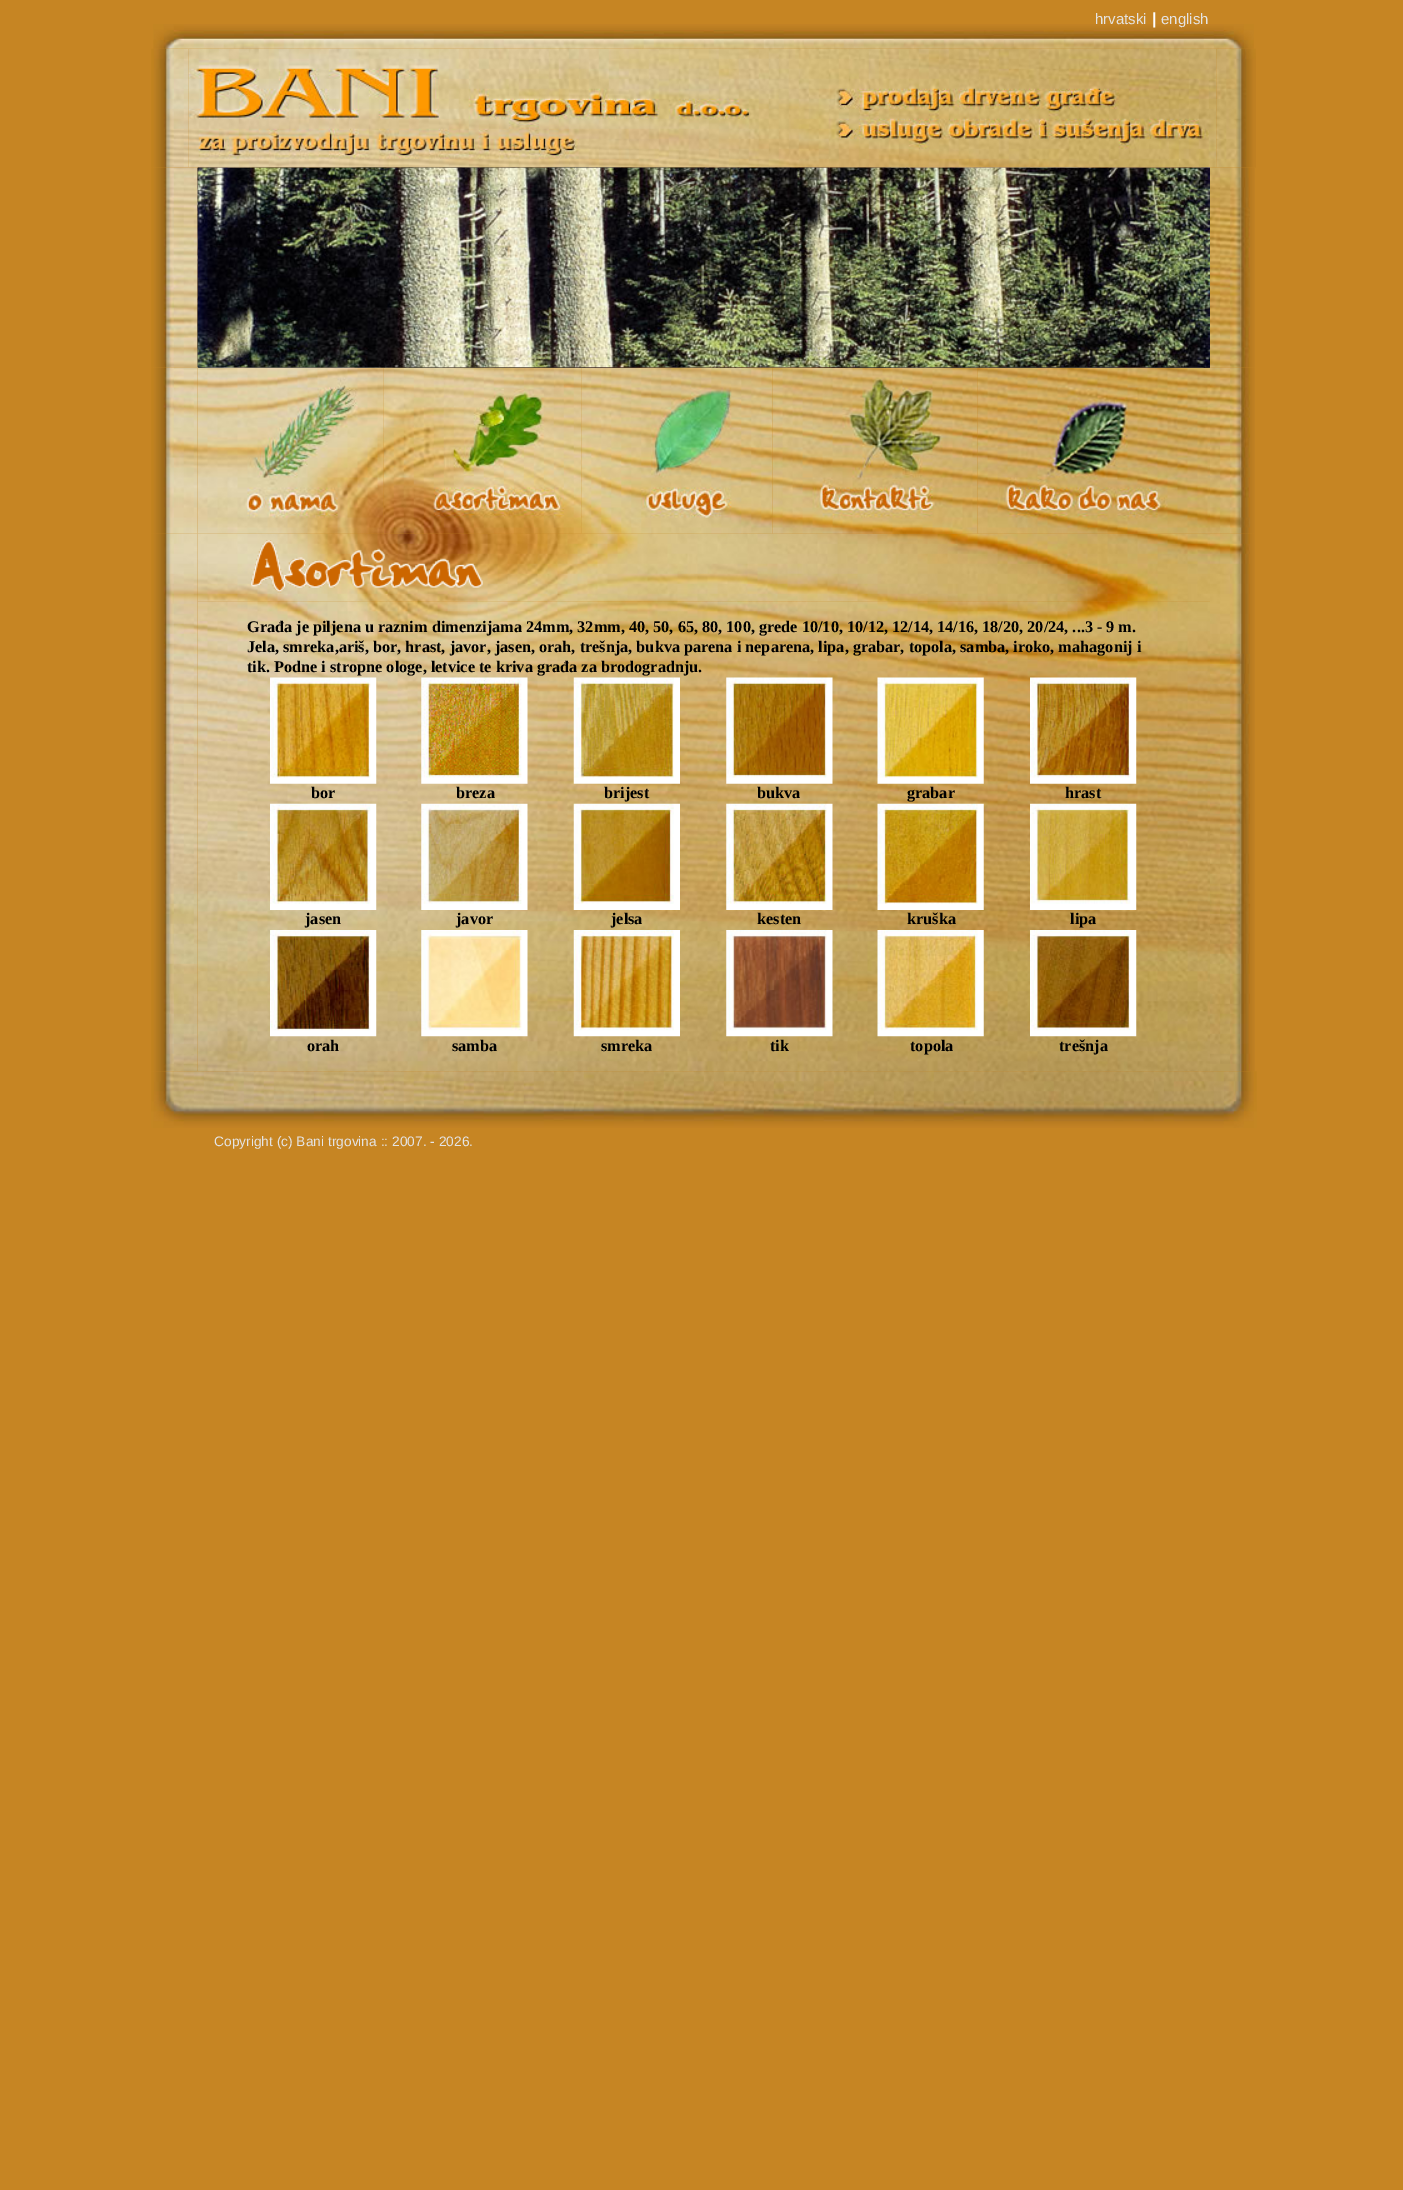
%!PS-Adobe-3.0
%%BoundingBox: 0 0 1403 2190
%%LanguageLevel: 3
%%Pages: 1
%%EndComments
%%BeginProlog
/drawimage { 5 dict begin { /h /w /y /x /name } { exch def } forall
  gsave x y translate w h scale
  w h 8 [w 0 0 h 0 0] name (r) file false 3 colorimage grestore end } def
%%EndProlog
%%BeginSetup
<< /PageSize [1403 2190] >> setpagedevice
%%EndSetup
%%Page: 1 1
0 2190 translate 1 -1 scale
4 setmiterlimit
0.776 0.522 0.137 setrgbcolor
0 0 1403 2190 rectfill
(images/1.raw) 153 24 1101 25 drawimage
(images/2.raw) 151 48 38 120 drawimage
(images/3.raw) 188 48 1029 120 drawimage
(images/4.raw) 1216 48 40 120 drawimage
(images/5.raw) 151 167 47 201 drawimage
(images/20.raw) 197 533 1013 69 drawimage
(images/12.raw) 151 367 47 167 drawimage
(images/13.raw) 197 367 187 167 drawimage
(images/14.raw) 383 367 199 167 drawimage
(images/15.raw) 581 367 192 167 drawimage
(images/16.raw) 772 367 206 167 drawimage
(images/17.raw) 977 367 233 167 drawimage
(images/6.raw) 197 167 1013 201 drawimage
(images/7.raw) 197 167 1013 201 drawimage
(images/8.raw) 197 167 1013 201 drawimage
(images/9.raw) 197 167 1013 201 drawimage
(images/10.raw) 197 167 1013 201 drawimage
(images/11.raw) 1210 167 45 201 drawimage
(images/18.raw) 1210 367 45 167 drawimage
(images/22.raw) 197 601 1013 471 drawimage
(images/19.raw) 151 533 47 539 drawimage
(images/21.raw) 251 540 232 53 drawimage
(images/23.raw) 270 677 107 107 drawimage
(images/24.raw) 421 677 107 107 drawimage
(images/25.raw) 573 677 107 107 drawimage
(images/26.raw) 726 677 107 107 drawimage
(images/27.raw) 877 677 107 107 drawimage
(images/28.raw) 1030 677 107 107 drawimage
(images/29.raw) 270 803 107 107 drawimage
(images/30.raw) 421 803 107 107 drawimage
(images/31.raw) 573 803 107 107 drawimage
(images/32.raw) 726 803 107 107 drawimage
(images/33.raw) 877 803 107 107 drawimage
(images/34.raw) 1030 803 107 107 drawimage
(images/35.raw) 270 930 107 107 drawimage
(images/36.raw) 421 930 107 107 drawimage
(images/37.raw) 573 930 107 107 drawimage
(images/38.raw) 726 930 107 107 drawimage
(images/39.raw) 877 930 107 107 drawimage
(images/40.raw) 1030 930 107 107 drawimage
(images/41.raw) 1210 533 45 539 drawimage
(images/42.raw) 151 1071 1106 57 drawimage
/LiberationSans-Regular [15 0 0 -15 0 0] selectfont
0.894 setgray
1095 24 moveto (hrvatski) show
/LiberationSans-Bold [16.25 0 0 -16.25 0 0] selectfont
1 setgray
1152 24 moveto (|) show
/LiberationSans-Regular [15 0 0 -15 0 0] selectfont
0.894 setgray
1161 24 moveto (english) show
/LiberationSerif-Bold [16.25 0 0 -16.25 0 0] selectfont
0 setgray
247 632 moveto (Građa je piljena u raznim dimenzijama 24mm, 32mm, 40, 50, 65, 80, 100, grede 10/10, 10/12, 12/14, 14/16, 18/20, 20/24, ...3 - 9 m.) show
247 652 moveto (Jela, smreka,ariš, bor, hrast, javor, jasen, orah, trešnja, bukva parena i neparena, lipa, grabar, topola, samba, iroko, mahagonij i) show
247 672 moveto (tik. Podne i stropne ologe, letvice te kriva građa za brodogradnju.) show
311 798 moveto (bor) show
456 798 moveto (breza) show
604 798 moveto (brijest) show
757 798 moveto (bukva) show
907 798 moveto (grabar) show
1065 798 moveto (hrast) show
305 924 moveto (jasen) show
456 924 moveto (javor) show
611 924 moveto (jelsa) show
757 924 moveto (kesten) show
907 924 moveto (kruška) show
1070 924 moveto (lipa) show
307 1051 moveto (orah) show
452 1051 moveto (samba) show
601 1051 moveto (smreka) show
770 1051 moveto (tik) show
910 1051 moveto (topola) show
1059 1051 moveto (trešnja) show
/LiberationSans-Regular [13.75 0 0 -13.75 0 0] selectfont
0.894 setgray
214 1146 moveto (Copyright \(c\) Bani trgovina :: 2007. - 2026.) show
showpage
%%EOF
